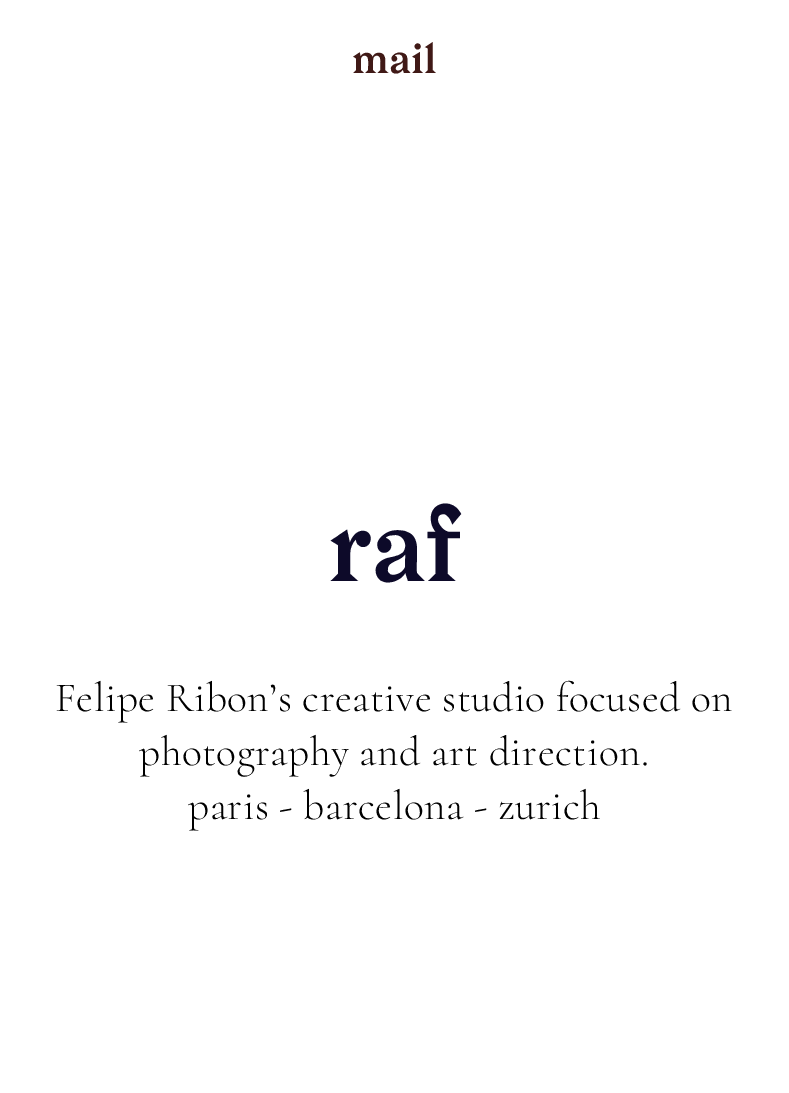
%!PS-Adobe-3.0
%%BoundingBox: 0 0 789 1093
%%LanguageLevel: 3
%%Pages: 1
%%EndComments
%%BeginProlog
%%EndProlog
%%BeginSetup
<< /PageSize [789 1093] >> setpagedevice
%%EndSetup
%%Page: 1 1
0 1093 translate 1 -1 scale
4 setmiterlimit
1 setgray
0 0 789 1093 rectfill
/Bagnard-Regular [41.6 0 0 -41.6 0 0] selectfont
0.251 0.098 0.086 setrgbcolor
352 73 moveto (mail) show
/Cormorant-Light [41.6 0 0 -41.6 0 0] selectfont
0 setgray
55 711 moveto 0.4 0 (Felipe Ribon’s creative studio focused on) ashow
139 765 moveto 0.4 0 (photography and art direction.) ashow
188 819 moveto 0.4 0 (paris - barcelona - zurich) ashow
/Bagnard-Regular [103 0 0 -103 0 0] selectfont
0.051 0.039 0.161 setrgbcolor
328 581 moveto (raf) show
showpage
%%EOF
